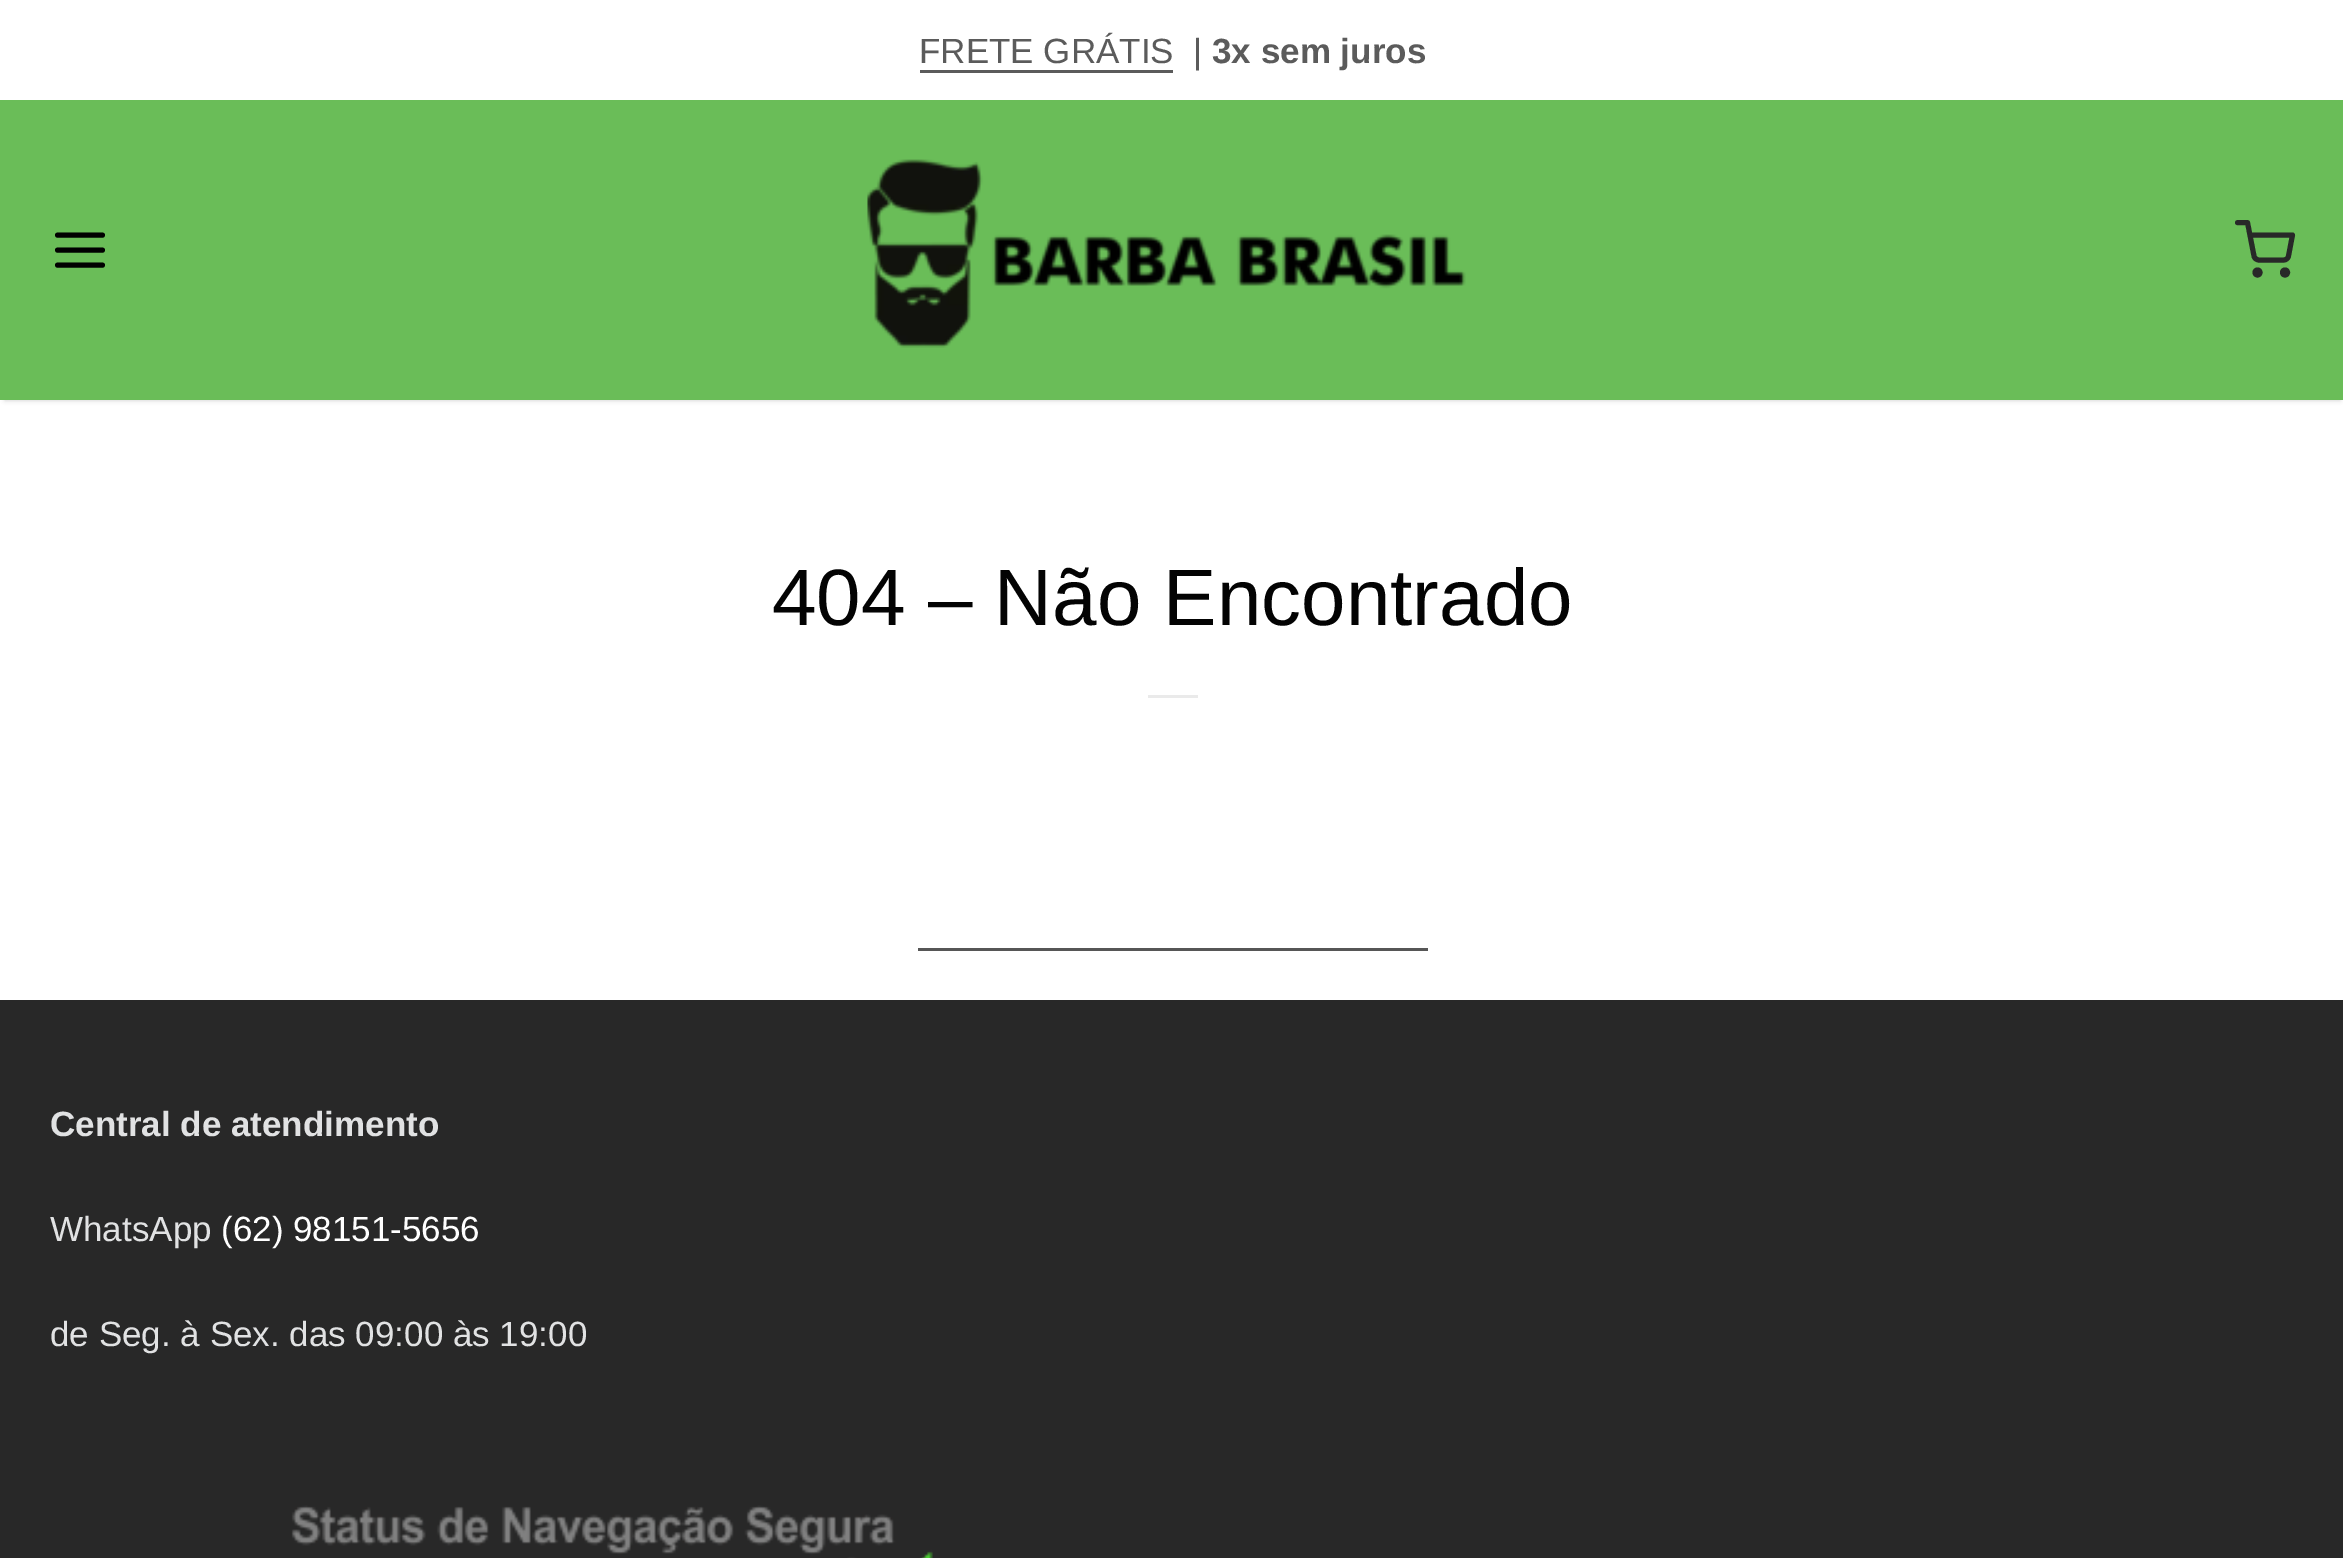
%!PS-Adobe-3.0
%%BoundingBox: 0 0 2343 1558
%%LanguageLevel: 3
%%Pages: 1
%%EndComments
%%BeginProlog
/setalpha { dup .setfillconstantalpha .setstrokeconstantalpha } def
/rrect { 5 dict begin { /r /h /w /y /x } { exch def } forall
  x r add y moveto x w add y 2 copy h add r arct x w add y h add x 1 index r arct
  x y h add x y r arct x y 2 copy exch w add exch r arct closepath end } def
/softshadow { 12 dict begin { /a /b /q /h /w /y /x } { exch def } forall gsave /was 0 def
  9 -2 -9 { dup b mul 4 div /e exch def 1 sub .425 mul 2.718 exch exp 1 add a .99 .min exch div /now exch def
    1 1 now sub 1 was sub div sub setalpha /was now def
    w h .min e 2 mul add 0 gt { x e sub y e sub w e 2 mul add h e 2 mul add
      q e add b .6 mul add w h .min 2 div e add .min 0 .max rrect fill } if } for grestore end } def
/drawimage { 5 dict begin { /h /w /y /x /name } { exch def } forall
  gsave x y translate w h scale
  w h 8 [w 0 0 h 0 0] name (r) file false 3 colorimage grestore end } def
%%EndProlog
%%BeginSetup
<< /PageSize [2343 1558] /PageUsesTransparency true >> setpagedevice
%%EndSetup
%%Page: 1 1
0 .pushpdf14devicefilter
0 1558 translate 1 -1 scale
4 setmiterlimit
1 setgray
0 0 2343 1558 rectfill
0.357 setgray
920 70 253 3 rectfill
0 setgray
5 110 2335 290 0 2.5 0.2 softshadow
0.416 0.741 0.345 setrgbcolor
0 100 2343 300 rectfill
0 setgray
5 setlinewidth
1 setlinecap
1 setlinejoin
newpath 57.5 250 moveto 102.5 250 lineto 57.5 235 moveto 102.5 235 lineto 57.5 265 moveto 102.5 265 lineto stroke
(images/1.raw) 867 159 599 189 drawimage
0.157 setgray
newpath 2237.5 222.5 moveto 2247.5 222.5 lineto 2254 256 lineto 2254.5 258.5 2257 260 2259 260 curveto 2283.5 260 lineto 2286 260 2288 258.5 2288.5 256 curveto 2292.5 235 lineto 2250 235 lineto stroke
0 setlinecap
0 setlinejoin
newpath 2257.5 272.5 2.5 0 360 arc closepath stroke
newpath 2285 272.5 2.5 0 360 arc closepath stroke
0.918 setgray
1148 695 50 3 rectfill
0.337 setgray
918 948 510 3 rectfill
0.157 setgray
0 1000 2343 558 rectfill
(images/2.raw) 291 1505 642 53 drawimage
/LiberationSans-Regular [35 0 0 -35 0 0] selectfont
0.357 setgray
919 63 moveto (FRETE GRÁTIS) show
1193 63 moveto (|) show
/LiberationSans-Bold [35 0 0 -35 0 0] selectfont
1212 63 moveto (3x sem juros) show
/LiberationSans-Regular [80 0 0 -80 0 0] selectfont
0.012 setgray
772 625 moveto (404 – Não Encontrado) show
/LiberationSans-Bold [35 0 0 -35 0 0] selectfont
0.882 0.886 0.89 setrgbcolor
50 1136 moveto (Central de atendimento) show
/LiberationSans-Regular [35 0 0 -35 0 0] selectfont
50 1241 moveto (WhatsApp) show
1 setgray
221 1241 moveto (\(62\) 98151-5656) show
0.882 0.886 0.89 setrgbcolor
50 1346 moveto (de Seg. à Sex. das 09:00 às 19:00) show
.poppdf14devicefilter showpage
%%EOF
